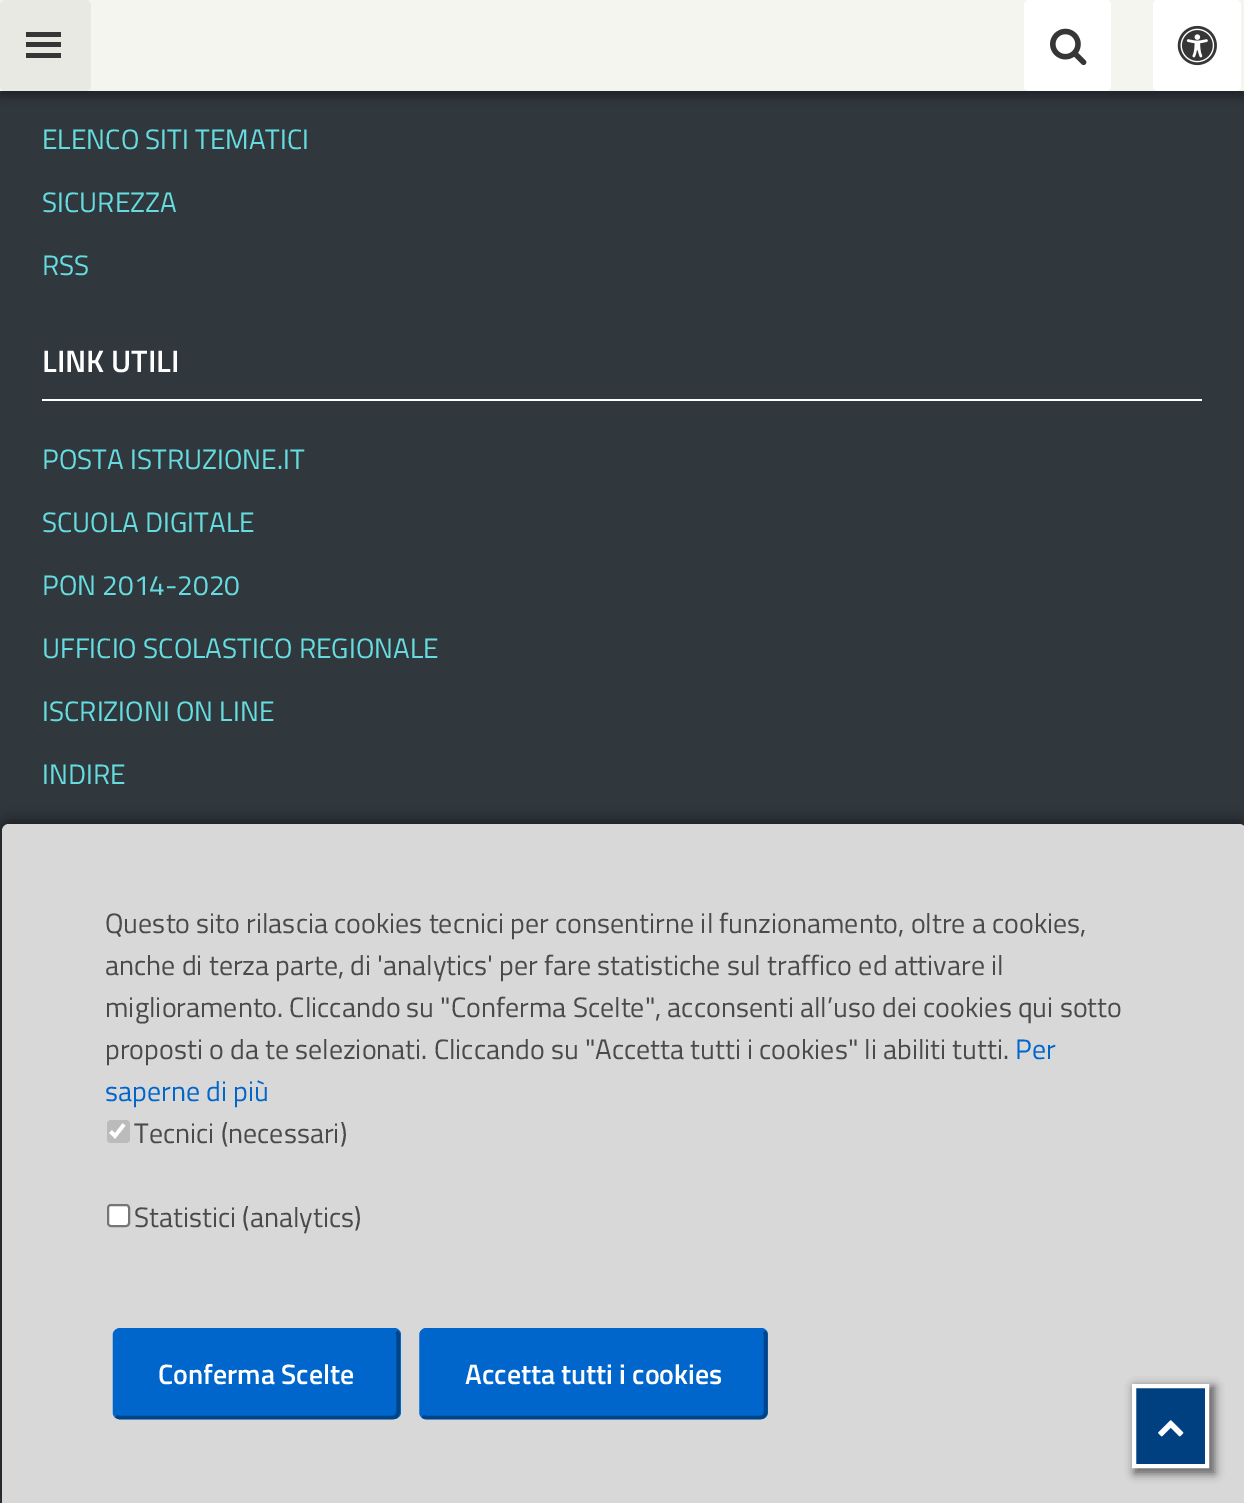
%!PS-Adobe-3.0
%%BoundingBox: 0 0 1244 1503
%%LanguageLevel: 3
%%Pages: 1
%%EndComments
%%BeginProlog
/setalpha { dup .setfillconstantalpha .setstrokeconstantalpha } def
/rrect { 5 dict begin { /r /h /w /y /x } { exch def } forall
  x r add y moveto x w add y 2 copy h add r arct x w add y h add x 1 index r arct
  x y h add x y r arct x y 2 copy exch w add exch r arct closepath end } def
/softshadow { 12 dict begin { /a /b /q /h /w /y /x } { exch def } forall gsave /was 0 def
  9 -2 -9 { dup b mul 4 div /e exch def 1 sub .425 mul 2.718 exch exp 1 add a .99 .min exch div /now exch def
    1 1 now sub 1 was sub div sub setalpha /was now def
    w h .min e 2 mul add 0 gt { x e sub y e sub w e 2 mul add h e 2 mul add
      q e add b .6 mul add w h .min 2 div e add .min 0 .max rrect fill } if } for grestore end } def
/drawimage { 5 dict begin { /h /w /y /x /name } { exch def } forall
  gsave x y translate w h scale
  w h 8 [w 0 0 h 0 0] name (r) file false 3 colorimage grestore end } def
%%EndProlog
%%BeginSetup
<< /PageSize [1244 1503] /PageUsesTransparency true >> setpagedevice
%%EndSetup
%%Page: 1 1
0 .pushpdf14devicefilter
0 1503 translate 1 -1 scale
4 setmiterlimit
0.188 0.216 0.239 setrgbcolor
0 0 1244 1503 rectfill
0 0.004 0 setrgbcolor
0 5 1244 91 0 4.5 0.35 softshadow
0.961 0.961 0.941 setrgbcolor
0 0 1244 91 rectfill
0.914 0.914 0.894 setrgbcolor
0 0 91 91 5 rrect fill
0.212 setgray
26 32 35 5 rectfill
26 42 35 5 rectfill
26 53 35 5 rectfill
1 setgray
1024 0 87 91 5 rrect fill
(images/1.raw) 1050 28 37 38 drawimage
1153 0 88 91 5 rrect fill
(images/2.raw) 1177 25 40 41 drawimage
42 399 1160 2 rectfill
gsave
newpath 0 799 moveto 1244 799 lineto 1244 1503 lineto 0 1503 lineto closepath 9 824 moveto 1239 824 lineto 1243 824 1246 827 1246 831 curveto 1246 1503 lineto 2 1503 lineto 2 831 lineto 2 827 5 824 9 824 curveto closepath eoclip newpath
0 setgray
0 821 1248 682 9 7 0.5 softshadow
grestore
0.847 setgray
newpath 9 824 moveto 1239 824 lineto 1243 824 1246 827 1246 831 curveto 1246 1503 lineto 2 1503 lineto 2 831 lineto 2 827 5 824 9 824 curveto closepath fill
0.733 setgray
107 1120 23 23 4 rrect fill
1 setgray
3.6 setlinewidth
newpath 110.5 1131.5 moveto 115 1136 lineto 124 1124.5 lineto stroke
108 1205 21 21 3 rrect gsave fill grestore
0.463 setgray
2 setlinewidth
stroke
0 0.4 0.8 setrgbcolor
114 1328 287 91 7 rrect fill
0 0.267 0.533 setrgbcolor
3.5 setlinewidth
newpath 396.5 1331.5 moveto 397.5 1332.5 398 1334 398 1335 curveto 398 1412 lineto 398 1413.5 397.5 1415 396.5 1416 curveto 395.5 1417 394.5 1417.5 393 1417.5 curveto 120 1417.5 lineto 118.5 1417.5 117 1417 116 1416 curveto stroke
0 0.4 0.8 setrgbcolor
newpath 116 1416 moveto 115 1415 114.5 1413.5 114.5 1412 curveto 114.5 1335 lineto 114.5 1334 115 1332.5 116 1331.5 curveto 117 1330.5 118.5 1330 120 1330 curveto 393 1330 lineto 394.5 1330 395.5 1330.5 396.5 1331.5 curveto stroke
420 1328 348 91 7 rrect fill
0 0.267 0.533 setrgbcolor
newpath 764 1331.5 moveto 765 1332.5 765.5 1334 765.5 1335 curveto 765.5 1412 lineto 765.5 1413.5 765 1415 764 1416 curveto 763 1417 762 1417.5 760.5 1417.5 curveto 426 1417.5 lineto 424.5 1417.5 423.5 1417 422.5 1416 curveto stroke
0 0.4 0.8 setrgbcolor
newpath 422.5 1416 moveto 421.5 1415 421 1413.5 421 1412 curveto 421 1335 lineto 421 1334 421.5 1332.5 422.5 1331.5 curveto 423.5 1330.5 424.5 1330 426 1330 curveto 760.5 1330 lineto 762 1330 763 1330.5 764 1331.5 curveto stroke
0.4 setgray
1134 1386 81 88 0 4.5 1 softshadow
0 0.251 0.502 setrgbcolor
newpath 1134 1386 moveto 1207 1386 lineto 1207 1466 lineto 1134 1466 lineto closepath gsave fill grestore
1 setgray
4 setlinewidth
stroke
(images/3.raw) 1158 1420 26 17 drawimage
/TitilliumWeb-Regular [28 0 0 -28 0 0] selectfont
0.396 0.867 0.878 setrgbcolor
42 149 moveto (ELENCO SITI TEMATICI) show
42 212 moveto (SICUREZZA) show
42 275 moveto (RSS) show
/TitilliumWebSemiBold-SemiBold [31 0 0 -31 0 0] selectfont
1 setgray
42 372 moveto (LINK UTILI) show
/TitilliumWeb-Regular [28 0 0 -28 0 0] selectfont
0.396 0.867 0.878 setrgbcolor
42 469 moveto (POSTA ISTRUZIONE.IT) show
42 532 moveto (SCUOLA DIGITALE) show
42 595 moveto (PON 2014-2020) show
42 658 moveto (UFFICIO SCOLASTICO REGIONALE) show
42 721 moveto (ISCRIZIONI ON LINE) show
42 784 moveto (INDIRE) show
0.29 setgray
105 933 moveto (Questo sito rilascia cookies tecnici per consentirne il funzionamento, oltre a cookies,) show
105 975 moveto (anche di terza parte, di 'analytics' per fare statistiche sul traffico ed attivare il) show
105 1017 moveto (miglioramento. Cliccando su "Conferma Scelte", acconsenti all’uso dei cookies qui sotto) show
105 1059 moveto (proposti o da te selezionati. Cliccando su "Accetta tutti i cookies" li abiliti tutti.) show
0 0.4 0.8 setrgbcolor
1015 1059 moveto (Per) show
105 1101 moveto (saperne di più) show
0.29 setgray
134 1143 moveto (Tecnici \(necessari\)) show
134 1227 moveto (Statistici \(analytics\)) show
/TitilliumWebSemiBold-SemiBold [28 0 0 -28 0 0] selectfont
1 setgray
158 1384 moveto (Conferma Scelte) show
465 1384 moveto (Accetta tutti i cookies) show
.poppdf14devicefilter showpage
%%EOF
